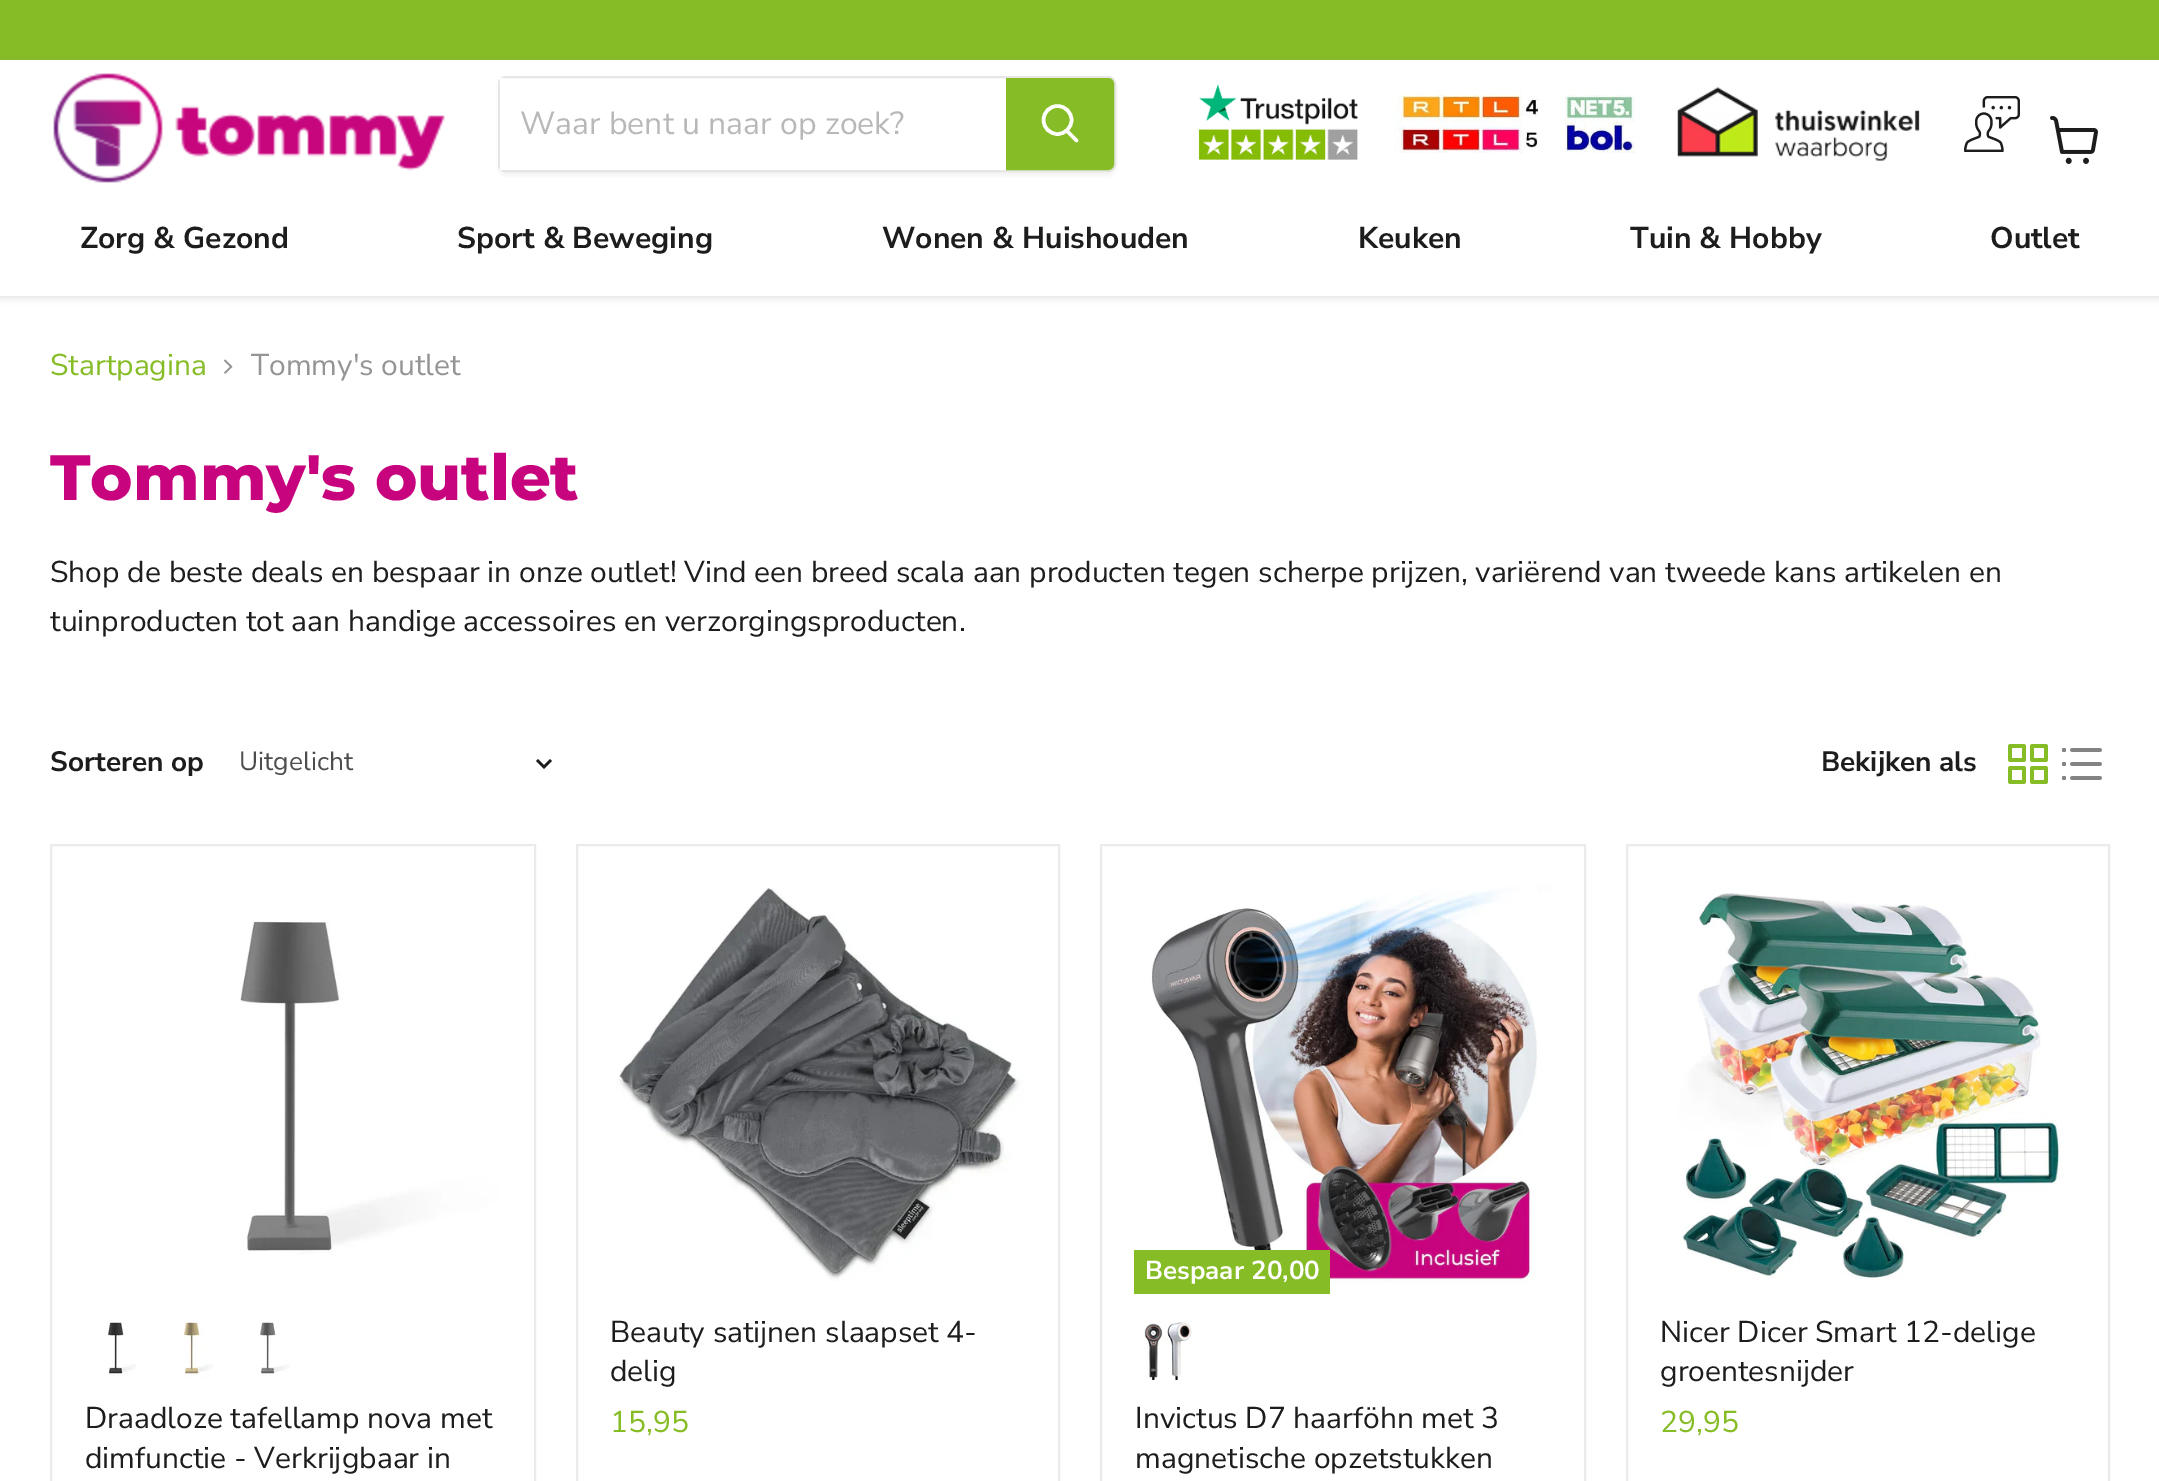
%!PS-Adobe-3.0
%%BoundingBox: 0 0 2159 1481
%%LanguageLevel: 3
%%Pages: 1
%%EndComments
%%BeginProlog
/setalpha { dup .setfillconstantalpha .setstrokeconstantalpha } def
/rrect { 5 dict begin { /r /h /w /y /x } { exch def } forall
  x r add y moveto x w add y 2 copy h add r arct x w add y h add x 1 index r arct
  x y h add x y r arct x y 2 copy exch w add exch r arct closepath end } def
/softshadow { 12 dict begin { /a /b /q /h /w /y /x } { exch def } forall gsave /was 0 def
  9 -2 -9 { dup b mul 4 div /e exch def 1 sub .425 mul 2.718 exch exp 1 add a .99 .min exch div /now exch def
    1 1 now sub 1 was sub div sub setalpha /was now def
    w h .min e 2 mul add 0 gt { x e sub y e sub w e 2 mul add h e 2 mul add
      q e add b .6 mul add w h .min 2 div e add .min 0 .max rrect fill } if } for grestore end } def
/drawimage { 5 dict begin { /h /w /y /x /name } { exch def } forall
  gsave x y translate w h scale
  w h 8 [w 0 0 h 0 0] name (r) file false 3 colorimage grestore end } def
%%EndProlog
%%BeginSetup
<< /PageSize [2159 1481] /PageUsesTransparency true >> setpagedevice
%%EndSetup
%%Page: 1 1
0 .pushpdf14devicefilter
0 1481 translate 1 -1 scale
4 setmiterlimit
1 setgray
0 0 2159 1481 rectfill
0.525 0.737 0.145 setrgbcolor
0 0 2159 60 rectfill
gsave
newpath 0 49 moveto 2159 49 lineto 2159 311 lineto 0 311 lineto closepath 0 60 moveto 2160 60 lineto 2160 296 lineto 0 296 lineto closepath eoclip newpath
0.502 setgray
0 62 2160 236 0 4 0.25 softshadow
grestore
(images/1.raw) 53 73 392 110 drawimage
gsave
newpath 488 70 moveto 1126 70 lineto 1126 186 lineto 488 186 lineto closepath 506 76 moveto 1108 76 lineto 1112.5 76 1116 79.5 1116 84 curveto 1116 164 lineto 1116 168.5 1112.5 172 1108 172 curveto 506 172 lineto 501.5 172 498 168.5 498 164 curveto 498 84 lineto 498 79.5 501.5 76 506 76 curveto closepath eoclip newpath
0.502 setgray
498 80 618 96 8 3 0.11 softshadow
grestore
0.2 setalpha
0.502 setgray
2 setlinewidth
499 77 616 94 7 rrect stroke
1 setalpha
1 setgray
500 78 5 92 rectfill
0.525 0.737 0.145 setrgbcolor
newpath 1007 79 moveto 1108 79 lineto 1111 79 1113 81 1113 84 curveto 1113 164 lineto 1113 167 1111 169 1108 169 curveto 1007 169 lineto closepath gsave fill grestore
stroke
1 setgray
3.5 setlinewidth
1 setlinecap
newpath 1076.5 140.5 moveto 1067 131 lineto stroke
0 setlinecap
newpath 1057.5 120 14 0 360 arc closepath stroke
(images/2.raw) 1198 84 160 76 drawimage
(images/3.raw) 1394 90 241 63 drawimage
(images/4.raw) 1677 87 243 74 drawimage
(images/5.raw) 1964 96 56 56 drawimage
(images/6.raw) 2050 116 48 48 drawimage
(images/7.raw) 224 359 9 15 drawimage
0.114 setgray
2.5 setlinewidth
2 setlinecap
newpath 544 767 moveto 550 761 lineto 544 767 moveto 538 761 lineto stroke
(images/8.raw) 2008 744 40 40 drawimage
(images/9.raw) 2062 748 40 32 drawimage
0.922 setgray
2 setlinewidth
0 setlinecap
51 845 484 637 rectstroke
(images/10.raw) 84 878 416 416 drawimage
(images/11.raw) 108 1320 28 56 drawimage
(images/12.raw) 183 1320 31 60 drawimage
(images/13.raw) 260 1320 30 56 drawimage
577 845 482 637 rectstroke
(images/14.raw) 610 878 416 416 drawimage
1101 845 484 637 rectstroke
(images/15.raw) 1134 878 416 416 drawimage
0.525 0.737 0.145 setrgbcolor
1134 1250 196 44 rectfill
(images/16.raw) 1142 1322 52 58 drawimage
0.922 setgray
1627 845 482 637 rectstroke
(images/17.raw) 1660 878 416 416 drawimage
/NunitoSans-Regular [32 0 0 -32 0 0] selectfont
0.722 setgray
520 134 moveto (Waar bent u naar op zoek?) show
/NunitoSans-Bold [30 0 0 -30 0 0] selectfont
0.114 setgray
80 248 moveto (Zorg & Gezond) show
457 248 moveto (Sport & Beweging) show
882 248 moveto (Wonen & Huishouden) show
1358 248 moveto (Keuken) show
1630 248 moveto (Tuin & Hobby) show
1990 248 moveto (Outlet) show
/NunitoSans-Regular [30 0 0 -30 0 0] selectfont
0.525 0.737 0.145 setrgbcolor
50 375 moveto (Startpagina) show
0.58 setgray
251 375 moveto (Tommy's outlet) show
/Montserrat-ExtraBold [63.75 0 0 -63.75 0 0] selectfont
0.78 0.012 0.494 setrgbcolor
50 500 moveto (Tommy's outlet) show
/NunitoSans-Regular [30 0 0 -30 0 0] selectfont
0.114 setgray
50 582 moveto (Shop de beste deals en bespaar in onze outlet! Vind een breed scala aan producten tegen scherpe prijzen, variërend van tweede kans artikelen en) show
50 631 moveto (tuinproducten tot aan handige accessoires en verzorgingsproducten.) show
/NunitoSans-Bold [28 0 0 -28 0 0] selectfont
50 771 moveto (Sorteren op) show
/NunitoSans-Regular [26.25 0 0 -26.25 0 0] selectfont
0.302 setgray
239 770 moveto (Uitgelicht) show
/NunitoSans-Bold [28 0 0 -28 0 0] selectfont
0.114 setgray
1821 771 moveto (Bekijken als) show
/NunitoSans-Regular [30 0 0 -30 0 0] selectfont
85 1428 moveto (Draadloze tafellamp nova met) show
85 1468 moveto (dimfunctie - Verkrijgbaar in) show
610 1342 moveto (Beauty satijnen slaapset 4-) show
610 1381 moveto (delig) show
0.525 0.737 0.145 setrgbcolor
610 1432 moveto (15,95) show
/NunitoSans-Bold [26 0 0 -26 0 0] selectfont
1 setgray
1145 1279 moveto (Bespaar 20,00) show
/NunitoSans-Regular [30 0 0 -30 0 0] selectfont
0.114 setgray
1135 1428 moveto (Invictus D7 haarföhn met 3) show
1135 1468 moveto (magnetische opzetstukken) show
1660 1342 moveto (Nicer Dicer Smart 12-delige) show
1660 1381 moveto (groentesnijder) show
0.525 0.737 0.145 setrgbcolor
1660 1432 moveto (29,95) show
.poppdf14devicefilter showpage
%%EOF
